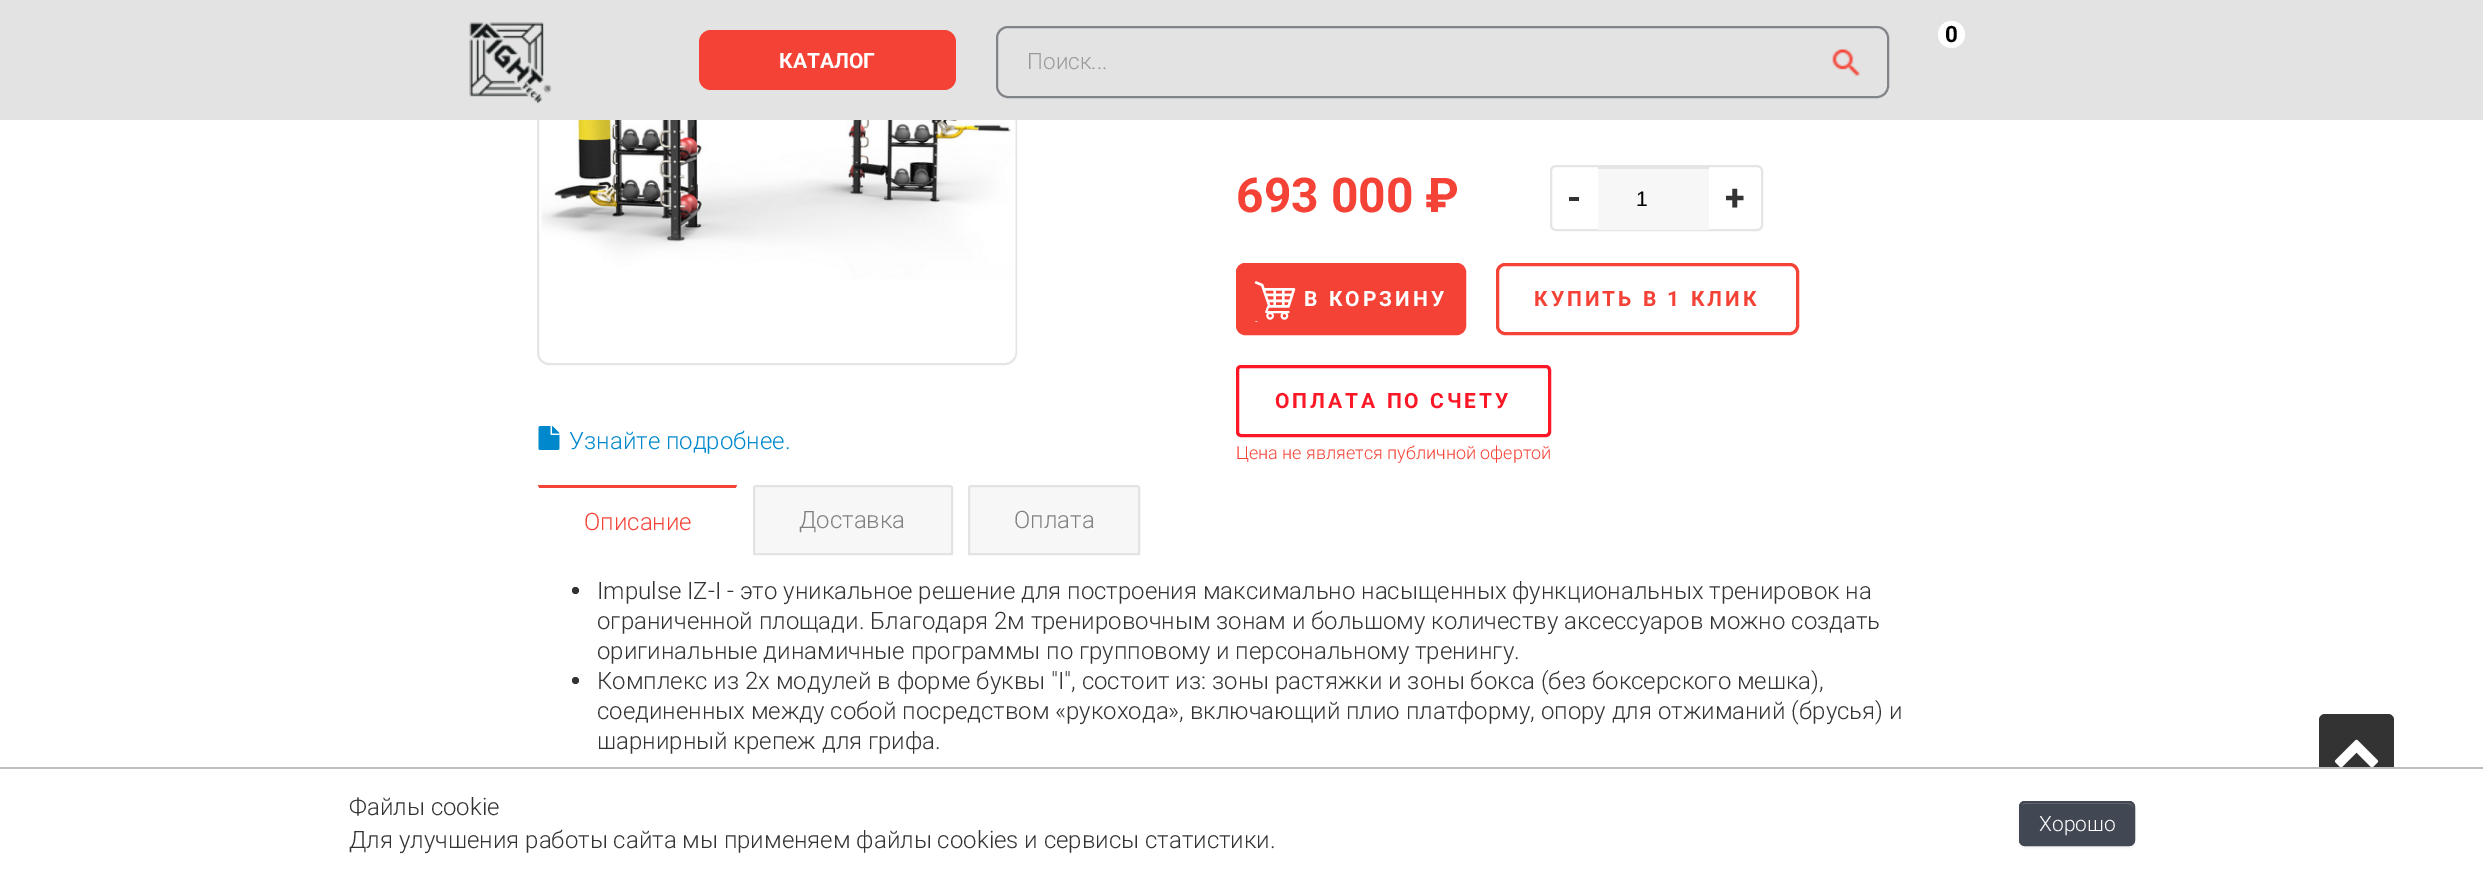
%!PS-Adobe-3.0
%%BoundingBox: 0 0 2483 878
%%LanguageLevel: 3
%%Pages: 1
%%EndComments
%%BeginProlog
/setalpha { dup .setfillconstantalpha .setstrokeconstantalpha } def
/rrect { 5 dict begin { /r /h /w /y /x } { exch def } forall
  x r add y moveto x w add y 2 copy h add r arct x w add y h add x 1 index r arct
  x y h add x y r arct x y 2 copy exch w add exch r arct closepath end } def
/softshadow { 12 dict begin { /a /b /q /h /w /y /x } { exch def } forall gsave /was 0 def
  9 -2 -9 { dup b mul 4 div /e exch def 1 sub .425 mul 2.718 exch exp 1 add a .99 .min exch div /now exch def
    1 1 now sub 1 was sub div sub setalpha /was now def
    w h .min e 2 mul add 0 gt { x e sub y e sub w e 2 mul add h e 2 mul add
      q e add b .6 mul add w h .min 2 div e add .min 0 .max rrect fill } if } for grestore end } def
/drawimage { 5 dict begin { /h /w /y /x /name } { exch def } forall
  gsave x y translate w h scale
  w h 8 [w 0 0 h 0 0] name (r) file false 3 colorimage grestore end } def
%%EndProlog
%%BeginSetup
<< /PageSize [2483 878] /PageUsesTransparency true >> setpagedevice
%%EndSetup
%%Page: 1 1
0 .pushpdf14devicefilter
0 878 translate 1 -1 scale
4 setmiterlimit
1 setgray
0 0 2483 878 rectfill
0.898 setgray
2 setlinewidth
538 -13 478 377 11 rrect stroke
0.89 setgray
0 0 2483 120 rectfill
(images/1.raw) 469 22 83 82 drawimage
1 setgray
newpath 1951.5 34.5 13.5 0 360 arc closepath fill
0.957 0.263 0.212 setrgbcolor
699 30 257 60 12 rrect fill
0.506 0.518 0.533 setrgbcolor
997 27 891 70 11 rrect stroke
(images/2.raw) 1832 49 29 28 drawimage
(images/3.raw) 541 120 475 237 drawimage
(images/4.raw) 538 426 22 24 drawimage
0.898 setgray
1551 166 211 64 5 rrect stroke
0.969 setgray
1598 169 111 61 rectfill
0.894 setgray
1598 167 111 2 rectfill
0.957 0.263 0.212 setrgbcolor
1237.5 264.5 227 69 7.5 rrect gsave fill grestore
3 setlinewidth
stroke
(images/5.raw) 1254 281 42 41 drawimage
1497.5 264.5 300 69 7.5 rrect stroke
0.988 0.09 0.149 setrgbcolor
1237.5 366.5 312 69 3.5 rrect stroke
gsave
537 485 1410 70 rectclip
0.957 0.263 0.212 setrgbcolor
newpath 538 486 moveto 538 484 lineto 737 484 lineto 737 486 lineto 736 488 lineto 539 488 lineto closepath fill
grestore
1 setgray
newpath 736 555 moveto 738 555 lineto 738 488 lineto 737 486 lineto 736 488 lineto closepath fill
newpath 537 555 moveto 538 555 lineto 538 488 lineto 539 488 lineto 538 486 lineto 537 488 lineto closepath fill
0.969 setgray
newpath 756 486 moveto 950 486 lineto 951 486 952 487 952 488 curveto 952 554 lineto 754 554 lineto 754 488 lineto 754 487 755 486 756 486 curveto closepath gsave fill grestore
0.89 setgray
2 setlinewidth
stroke
0.969 setgray
newpath 971 486 moveto 1137 486 lineto 1138 486 1139 487 1139 488 curveto 1139 554 lineto 969 554 lineto 969 488 lineto 969 487 970 486 971 486 curveto closepath gsave fill grestore
0.89 setgray
stroke
0.2 setgray
newpath 575.5 590.5 3.5 0 360 arc closepath fill
newpath 575.5 680.5 3.5 0 360 arc closepath fill
2319 714 75 75 6 rrect fill
(images/6.raw) 2334 739 45 28 drawimage
1 setgray
2319 769 75 20 rectfill
0.741 setgray
0 767 2483 2 rectfill
0 setgray
2019 803 116 45 6 1.5 0.05 softshadow
0.259 0.282 0.325 setrgbcolor
2019 801 116 45 6 rrect fill
0.408 0.427 0.459 setrgbcolor
newpath 2025 804 moveto 2128 804 lineto 2131 804 2133 806 2133 808 curveto 2133 805 2131 803 2128 803 curveto 2026 803 lineto 2024 803 2023 804 2022 805 curveto closepath fill
0.259 0.282 0.325 setrgbcolor
2020 802 114 43 5 rrect stroke
/Roboto-Bold [22.5 0 0 -22.5 0 0] selectfont
0 setgray
1945 42 moveto (0) show
/Roboto-Bold [21 0 0 -21 0 0] selectfont
1 setgray
779 68 moveto (КАТАЛОГ) show
/Roboto-Light [22.5 0 0 -22.5 0 0] selectfont
0.6 setgray
1027 69 moveto (Поиск...) show
/Roboto-Light [24 0 0 -24 0 0] selectfont
0 0.533 0.8 setrgbcolor
569 449 moveto (Узнайте подробнее.) show
/Roboto-Bold [48 0 0 -48 0 0] selectfont
0.957 0.263 0.212 setrgbcolor
1236 212 moveto (693 000 ₽) show
/Roboto-Bold [36 0 0 -36 0 0] selectfont
0.2 setgray
1567 210 moveto (-) show
/LiberationSans-Regular [21 0 0 -21 0 0] selectfont
0 setgray
1636 206 moveto (1) show
/Roboto-Bold [36 0 0 -36 0 0] selectfont
0.2 setgray
1725 210 moveto (+) show
/Roboto-Bold [21 0 0 -21 0 0] selectfont
1 setgray
1304 306 moveto 3 0 (В КОРЗИНУ) ashow
0.957 0.263 0.212 setrgbcolor
1534 306 moveto 3 0 (КУПИТЬ В 1 КЛИК) ashow
0.988 0.09 0.149 setrgbcolor
1275 408 moveto 3 0 (ОПЛАТА ПО СЧЕТУ) ashow
/Roboto-Light [18 0 0 -18 0 0] selectfont
0.957 0.263 0.212 setrgbcolor
1236 459 moveto (Цена не является публичной офертой) show
/Roboto-Light [24 0 0 -24 0 0] selectfont
584 530 moveto (Описание) show
0.498 setgray
799 528 moveto (Доставка) show
1014 528 moveto (Оплата) show
0.2 setgray
597 599 moveto (Impulse IZ-I - это уникальное решение для построения максимально насыщенных функциональных тренировок на) show
597 629 moveto (ограниченной площади. Благодаря 2м тренировочным зонам и большому количеству аксессуаров можно создать) show
597 659 moveto (оригинальные динамичные программы по групповому и персональному тренингу.) show
597 689 moveto (Комплекс из 2х модулей в форме буквы "I", состоит из: зоны растяжки и зоны бокса \(без боксерского мешка\),) show
597 719 moveto (соединенных между собой посредством «рукохода», включающий плио платформу, опору для отжиманий \(брусья\) и) show
597 749 moveto (шарнирный крепеж для грифа.) show
349 815 moveto (Файлы cookie) show
349 848 moveto (Для улучшения работы сайта мы применяем файлы cookies и сервисы статистики.) show
/Roboto-Light [21 0 0 -21 0 0] selectfont
1 setgray
2039 831 moveto (Хорошо) show
.poppdf14devicefilter showpage
%%EOF
